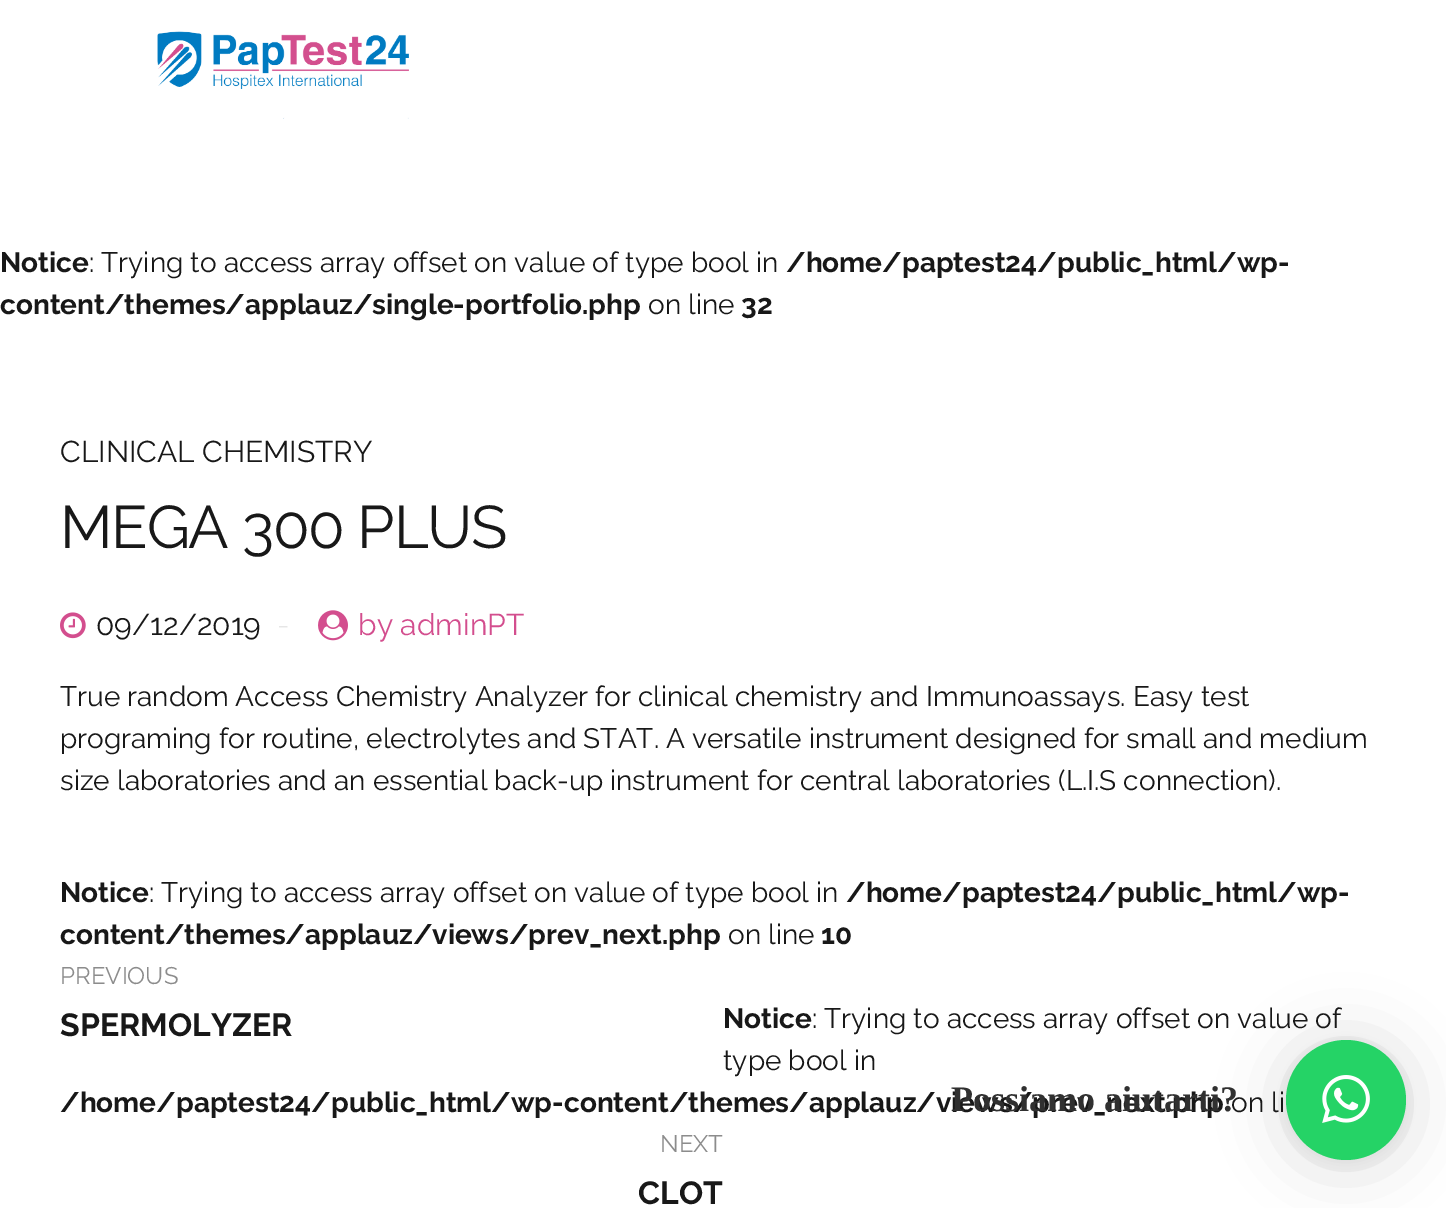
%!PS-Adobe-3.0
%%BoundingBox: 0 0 1446 1208
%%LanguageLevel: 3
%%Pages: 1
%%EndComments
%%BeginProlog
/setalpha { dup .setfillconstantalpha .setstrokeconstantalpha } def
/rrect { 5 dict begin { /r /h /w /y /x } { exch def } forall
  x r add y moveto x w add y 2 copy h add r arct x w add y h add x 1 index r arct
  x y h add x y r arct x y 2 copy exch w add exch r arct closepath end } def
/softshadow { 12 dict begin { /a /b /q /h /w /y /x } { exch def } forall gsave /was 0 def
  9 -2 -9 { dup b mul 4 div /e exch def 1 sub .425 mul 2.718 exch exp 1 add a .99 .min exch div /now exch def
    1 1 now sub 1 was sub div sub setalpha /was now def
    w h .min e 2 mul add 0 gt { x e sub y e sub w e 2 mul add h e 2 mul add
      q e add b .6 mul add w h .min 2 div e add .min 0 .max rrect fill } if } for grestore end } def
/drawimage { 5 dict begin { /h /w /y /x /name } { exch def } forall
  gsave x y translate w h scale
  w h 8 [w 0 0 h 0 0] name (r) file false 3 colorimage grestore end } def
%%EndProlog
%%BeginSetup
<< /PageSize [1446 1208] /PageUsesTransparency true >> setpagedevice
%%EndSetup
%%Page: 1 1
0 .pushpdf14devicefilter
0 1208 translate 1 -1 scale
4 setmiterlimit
1 setgray
0 0 1446 1208 rectfill
(images/1.raw) 157 31 252 88 drawimage
(images/2.raw) 60 612 26 27 drawimage
(images/3.raw) 318 610 30 31 drawimage
0 setgray
1286 1044 120 120 60 32 0.16 softshadow
1286 1042 120 120 60 6 0.06 softshadow
0.145 0.827 0.4 setrgbcolor
newpath 1346 1100 60 0 360 arc closepath fill
(images/4.raw) 1322 1075 48 48 drawimage
/Raleway-Bold [28 0 0 -28 0 0] selectfont
0.094 setgray
0 272 moveto (Notice) show
/Raleway-Regular [28 0 0 -28 0 0] selectfont
89 272 moveto (: Trying to access array offset on value of type bool in) show
/Raleway-Bold [28 0 0 -28 0 0] selectfont
786 272 moveto (/home/paptest24/public_html/wp-) show
0 314 moveto (content/themes/applauz/single-portfolio.php) show
/Raleway-Regular [28 0 0 -28 0 0] selectfont
648 314 moveto (on line) show
/Raleway-Bold [28 0 0 -28 0 0] selectfont
741 314 moveto (32) show
/Raleway-Regular [30 0 0 -30 0 0] selectfont
60 462 moveto (CLINICAL CHEMISTRY) show
/Raleway-Regular [60 0 0 -60 0 0] selectfont
60 548 moveto -1.25 0 (MEGA 300 PLUS) ashow
/Raleway-Regular [30 0 0 -30 0 0] selectfont
96 635 moveto (09/12/2019) show
/Raleway-Thin [30 0 0 -30 0 0] selectfont
0.82 setgray
277 635 moveto 13 0 (-) ashow
/Raleway-Regular [30 0 0 -30 0 0] selectfont
0.827 0.306 0.557 setrgbcolor
358 635 moveto (by adminPT) show
/Raleway-Regular [28 0 0 -28 0 0] selectfont
0.094 setgray
60 706 moveto (True random Access Chemistry Analyzer for clinical chemistry and Immunoassays. Easy test) show
60 748 moveto (programing for routine, electrolytes and STAT. A versatile instrument designed for small and medium) show
60 790 moveto (size laboratories and an essential back-up instrument for central laboratories \(L.I.S connection\).) show
/Raleway-Bold [28 0 0 -28 0 0] selectfont
60 902 moveto (Notice) show
/Raleway-Regular [28 0 0 -28 0 0] selectfont
149 902 moveto (: Trying to access array offset on value of type bool in) show
/Raleway-Bold [28 0 0 -28 0 0] selectfont
846 902 moveto (/home/paptest24/public_html/wp-) show
60 944 moveto (content/themes/applauz/views/prev_next.php) show
/Raleway-Regular [28 0 0 -28 0 0] selectfont
728 944 moveto (on line) show
/Raleway-Bold [28 0 0 -28 0 0] selectfont
821 944 moveto (10) show
/Raleway-Regular [24 0 0 -24 0 0] selectfont
0.549 setgray
60 984 moveto (PREVIOUS) show
/Raleway-Bold [32 0 0 -32 0 0] selectfont
0.094 setgray
60 1036 moveto (SPERMOLYZER) show
/Raleway-Bold [28 0 0 -28 0 0] selectfont
723 1028 moveto (Notice) show
/Raleway-Regular [28 0 0 -28 0 0] selectfont
812 1028 moveto (: Trying to access array offset on value of) show
723 1070 moveto (type bool in) show
/Raleway-Bold [28 0 0 -28 0 0] selectfont
60 1112 moveto (/home/paptest24/public_html/wp-content/themes/applauz/views/prev_next.php) show
/Raleway-Regular [28 0 0 -28 0 0] selectfont
1231 1112 moveto (on li) show
/Raleway-Regular [24 0 0 -24 0 0] selectfont
0.549 setgray
660 1152 moveto (NEXT) show
/Raleway-Bold [32 0 0 -32 0 0] selectfont
0.094 setgray
638 1204 moveto (CLOT) show
/LiberationSerif-Bold [36 0 0 -36 0 0] selectfont
0.188 setgray
951 1111 moveto (Possiamo aiutarti?) show
.poppdf14devicefilter showpage
%%EOF
